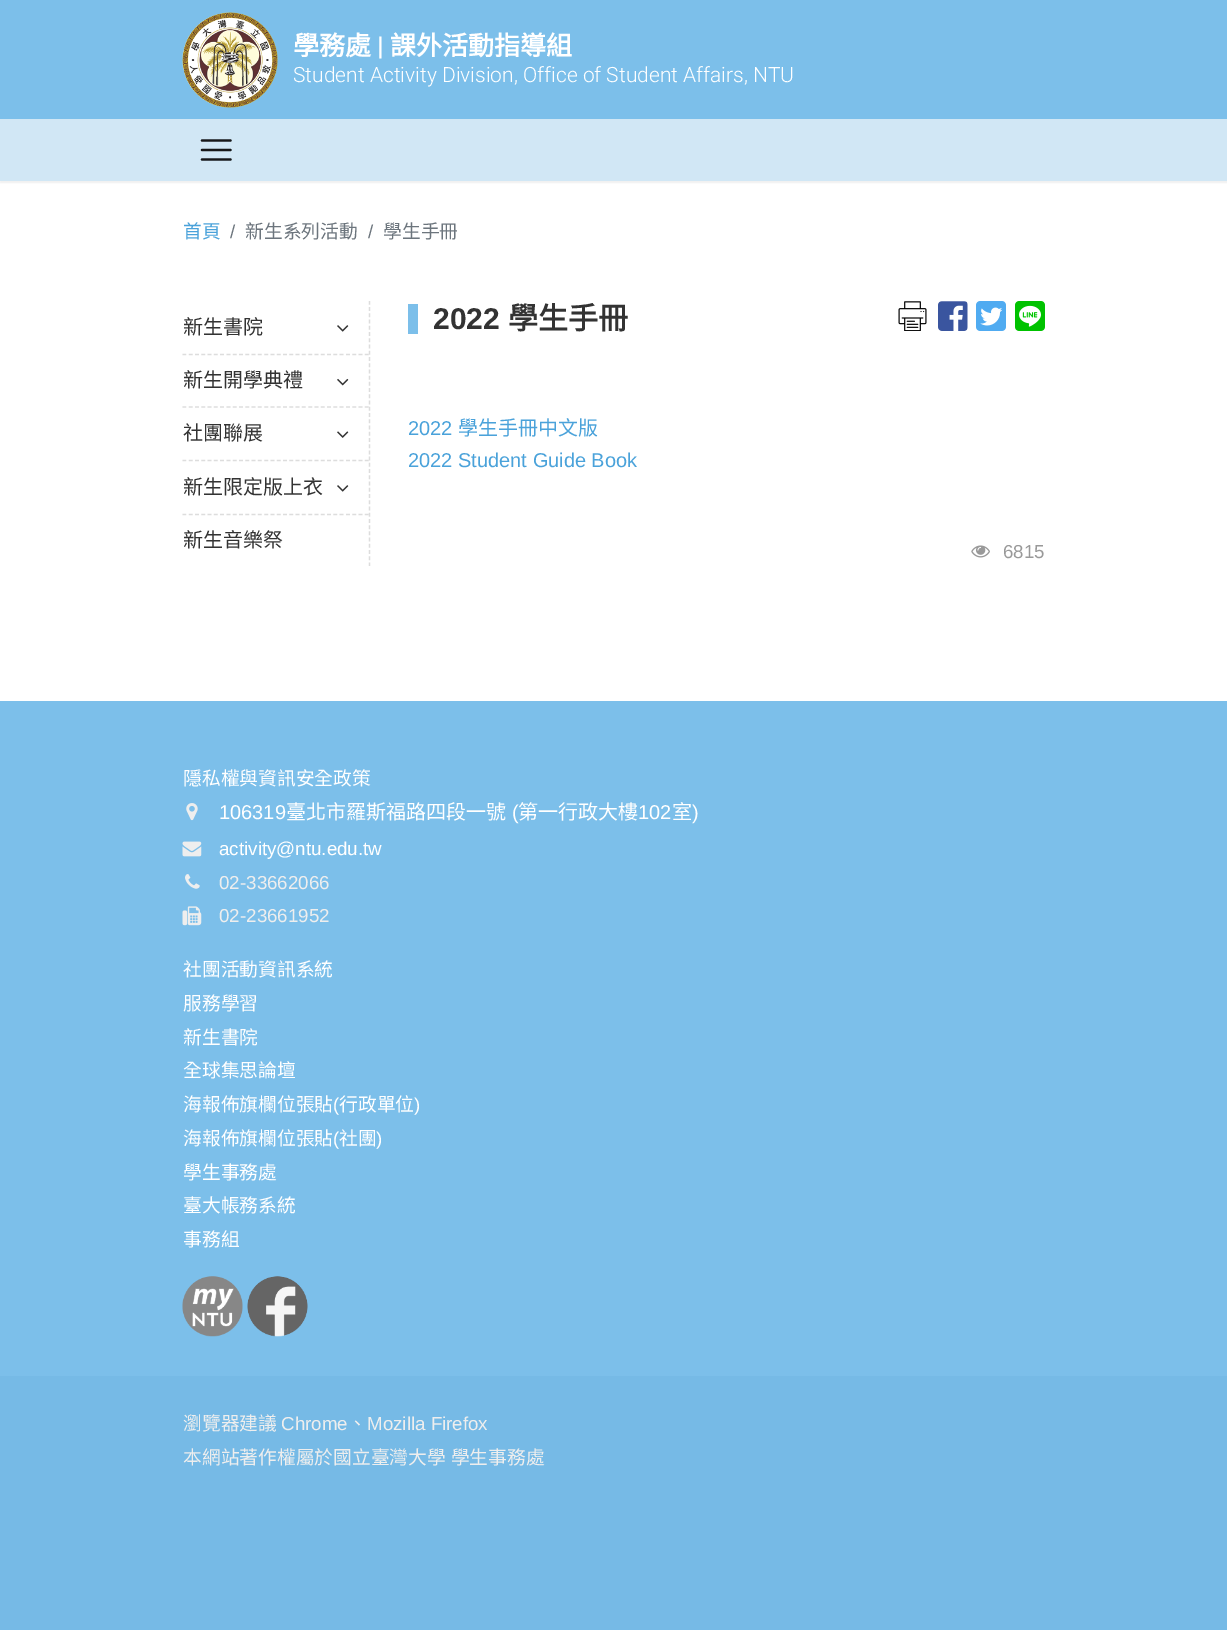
%!PS-Adobe-3.0
%%BoundingBox: 0 0 1227 1630
%%LanguageLevel: 3
%%Pages: 1
%%EndComments
%%BeginProlog
/setalpha { dup .setfillconstantalpha .setstrokeconstantalpha } def
/rrect { 5 dict begin { /r /h /w /y /x } { exch def } forall
  x r add y moveto x w add y 2 copy h add r arct x w add y h add x 1 index r arct
  x y h add x y r arct x y 2 copy exch w add exch r arct closepath end } def
/softshadow { 12 dict begin { /a /b /q /h /w /y /x } { exch def } forall gsave /was 0 def
  9 -2 -9 { dup b mul 4 div /e exch def 1 sub .425 mul 2.718 exch exp 1 add a .99 .min exch div /now exch def
    1 1 now sub 1 was sub div sub setalpha /was now def
    w h .min e 2 mul add 0 gt { x e sub y e sub w e 2 mul add h e 2 mul add
      q e add b .6 mul add w h .min 2 div e add .min 0 .max rrect fill } if } for grestore end } def
/drawimage { 5 dict begin { /h /w /y /x /name } { exch def } forall
  gsave x y translate w h scale
  w h 8 [w 0 0 h 0 0] name (r) file false 3 colorimage grestore end } def
%%EndProlog
%%BeginSetup
<< /PageSize [1227 1630] /PageUsesTransparency true >> setpagedevice
%%EndSetup
%%Page: 1 1
0 .pushpdf14devicefilter
0 1630 translate 1 -1 scale
4 setmiterlimit
0.463 0.729 0.902 setrgbcolor
0 0 1227 1630 rectfill
1 setgray
0 181 1227 520 rectfill
0.486 0.749 0.918 setrgbcolor
0 0 1227 119 rectfill
(images/1.raw) 182 12 96 96 drawimage
0 setgray
0 120 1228 63 0 0.5 0.05 softshadow
0.82 0.906 0.961 setrgbcolor
0 119 1227 62 rectfill
0.082 0.09 0.098 setrgbcolor
2.3 setlinewidth
1 setlinecap
newpath 202 140.5 moveto 230.5 140.5 lineto 202 150 moveto 230.5 150 lineto 202 159.5 moveto 230.5 159.5 lineto stroke
0.867 setgray
1.2 setlinewidth
0 setlinecap
[3.75 2.48] 0 setdash
newpath 369.5 301 moveto 369.5 566 lineto stroke
[3.75 2.54] 0 setdash
newpath 182.5 354.5 moveto 369 354.5 lineto stroke
(images/2.raw) 337 325 12 7 drawimage
newpath 182.5 407 moveto 369 407 lineto stroke
(images/3.raw) 337 378 12 8 drawimage
newpath 182.5 460.5 moveto 369 460.5 lineto stroke
(images/4.raw) 337 431 12 7 drawimage
newpath 182.5 514.5 moveto 369 514.5 lineto stroke
(images/2.raw) 337 485 12 7 drawimage
0.486 0.749 0.918 setrgbcolor
408 304 10 30 rectfill
(images/5.raw) 898 301 29 30 drawimage
(images/6.raw) 938 301 30 30 drawimage
(images/7.raw) 976 301 30 30 drawimage
(images/8.raw) 1015 301 30 30 drawimage
(images/9.raw) 971 545 19 13 drawimage
0 701 1227 675 rectfill
(images/10.raw) 186 803 12 18 drawimage
(images/11.raw) 182 841 20 16 drawimage
(images/12.raw) 185 874 15 15 drawimage
(images/13.raw) 182 906 20 20 drawimage
(images/14.raw) 182 1276 61 61 drawimage
(images/15.raw) 247 1276 61 61 drawimage
/NotoSansCJKTC-Bold [26 0 0 -26 0 0] selectfont
1 setgray
293 55 moveto (學務處) show
/Roboto-Bold [26 0 0 -26 0 0] selectfont
377 55 moveto (|) show
/NotoSansCJKTC-Bold [26 0 0 -26 0 0] selectfont
390 55 moveto (課外活動指導組) show
/Roboto-Light [21 0 0 -21 0 0] selectfont
293 82 moveto (Student Activity Division, Office of Student Affairs, NTU) show
/NotoSansCJKTC-Regular [18.75 0 0 -18.75 0 0] selectfont
0.29 0.635 0.855 setrgbcolor
183 238 moveto (首頁) show
/LiberationSans-Regular [18.75 0 0 -18.75 0 0] selectfont
0.424 0.459 0.49 setrgbcolor
230 238 moveto (/) show
/NotoSansCJKTC-Regular [18.75 0 0 -18.75 0 0] selectfont
245 238 moveto (新生系列活動) show
/LiberationSans-Regular [18.75 0 0 -18.75 0 0] selectfont
368 238 moveto (/) show
/NotoSansCJKTC-Regular [18.75 0 0 -18.75 0 0] selectfont
383 238 moveto (學生手冊) show
/NotoSansCJKTC-Regular [20 0 0 -20 0 0] selectfont
0.2 setgray
183 334 moveto (新生書院) show
183 387 moveto (新生開學典禮) show
183 440 moveto (社團聯展) show
183 494 moveto (新生限定版上衣) show
183 547 moveto (新生音樂祭) show
/LiberationSans-Bold [30 0 0 -30 0 0] selectfont
433 329 moveto (2022) show
/NotoSansCJKTC-Bold [30 0 0 -30 0 0] selectfont
508 329 moveto (學生手冊) show
/LiberationSans-Regular [20 0 0 -20 0 0] selectfont
0.29 0.635 0.855 setrgbcolor
408 435 moveto (2022) show
/NotoSansCJKTC-Regular [20 0 0 -20 0 0] selectfont
458 435 moveto (學生手冊中文版) show
/LiberationSans-Regular [20 0 0 -20 0 0] selectfont
408 467 moveto (2022 Student Guide Book) show
/LiberationSans-Regular [18.75 0 0 -18.75 0 0] selectfont
0.6 setgray
1003 558 moveto (6815) show
/NotoSansCJKTC-Regular [18.75 0 0 -18.75 0 0] selectfont
1 setgray
183 785 moveto (隱私權與資訊安全政策) show
/LiberationSans-Regular [20 0 0 -20 0 0] selectfont
219 819 moveto (106319) show
/NotoSansCJKTC-Regular [20 0 0 -20 0 0] selectfont
286 819 moveto (臺北市羅斯福路四段一號) show
/LiberationSans-Regular [20 0 0 -20 0 0] selectfont
512 819 moveto (\() show
/NotoSansCJKTC-Regular [20 0 0 -20 0 0] selectfont
518 819 moveto (第一行政大樓) show
/LiberationSans-Regular [20 0 0 -20 0 0] selectfont
638 819 moveto (102) show
/NotoSansCJKTC-Regular [20 0 0 -20 0 0] selectfont
672 819 moveto (室) show
/LiberationSans-Regular [20 0 0 -20 0 0] selectfont
692 819 moveto (\)) show
/LiberationSans-Regular [18.75 0 0 -18.75 0 0] selectfont
219 855 moveto (activity@ntu.edu.tw) show
0.933 setgray
219 889 moveto (02-33662066) show
219 922 moveto (02-23661952) show
/NotoSansCJKTC-Regular [18.75 0 0 -18.75 0 0] selectfont
1 setgray
183 976 moveto (社團活動資訊系統) show
183 1010 moveto (服務學習) show
183 1044 moveto (新生書院) show
183 1077 moveto (全球集思論壇) show
183 1111 moveto (海報佈旗欄位張貼) show
/LiberationSans-Regular [18.75 0 0 -18.75 0 0] selectfont
333 1111 moveto (\() show
/NotoSansCJKTC-Regular [18.75 0 0 -18.75 0 0] selectfont
339 1111 moveto (行政單位) show
/LiberationSans-Regular [18.75 0 0 -18.75 0 0] selectfont
414 1111 moveto (\)) show
/NotoSansCJKTC-Regular [18.75 0 0 -18.75 0 0] selectfont
183 1145 moveto (海報佈旗欄位張貼) show
/LiberationSans-Regular [18.75 0 0 -18.75 0 0] selectfont
333 1145 moveto (\() show
/NotoSansCJKTC-Regular [18.75 0 0 -18.75 0 0] selectfont
339 1145 moveto (社團) show
/LiberationSans-Regular [18.75 0 0 -18.75 0 0] selectfont
376 1145 moveto (\)) show
/NotoSansCJKTC-Regular [18.75 0 0 -18.75 0 0] selectfont
183 1179 moveto (學生事務處) show
183 1212 moveto (臺大帳務系統) show
183 1246 moveto (事務組) show
0.933 setgray
183 1430 moveto (瀏覽器建議) show
/LiberationSans-Regular [18.75 0 0 -18.75 0 0] selectfont
281 1430 moveto (Chrome) show
/NotoSansCJKTC-Regular [18.75 0 0 -18.75 0 0] selectfont
348 1430 moveto (、) show
/LiberationSans-Regular [18.75 0 0 -18.75 0 0] selectfont
367 1430 moveto (Mozilla Firefox) show
/NotoSansCJKTC-Regular [18.75 0 0 -18.75 0 0] selectfont
183 1464 moveto 1 0 32 (本網站著作權屬於國立臺灣大學 學生事務處) widthshow
.poppdf14devicefilter showpage
%%EOF
